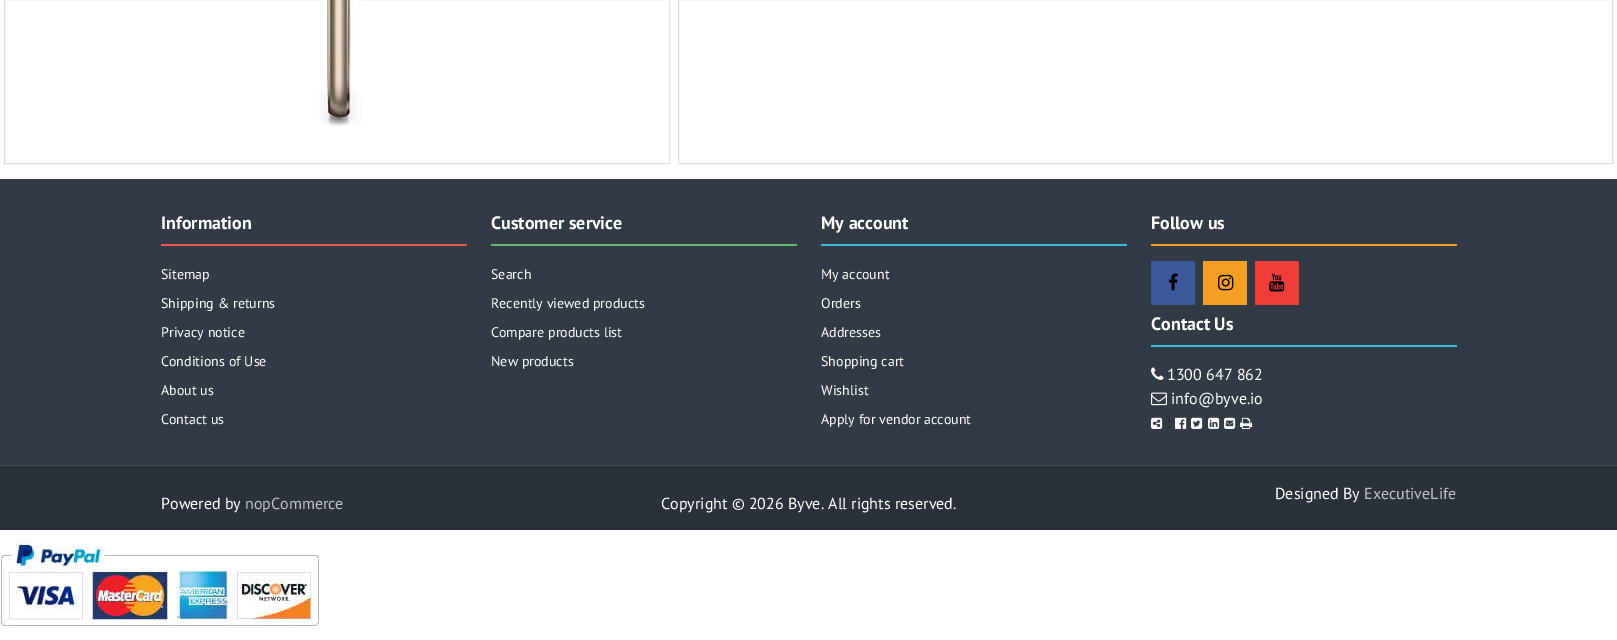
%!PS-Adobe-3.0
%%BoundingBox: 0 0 1617 640
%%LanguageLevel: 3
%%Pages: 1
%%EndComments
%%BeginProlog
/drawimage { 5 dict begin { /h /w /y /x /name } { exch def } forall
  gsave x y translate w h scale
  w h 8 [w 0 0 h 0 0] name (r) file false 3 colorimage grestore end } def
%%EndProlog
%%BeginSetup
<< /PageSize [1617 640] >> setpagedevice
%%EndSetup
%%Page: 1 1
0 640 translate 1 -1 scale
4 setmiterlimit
1 setgray
0 0 1617 640 rectfill
0.875 setgray
4.5 -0.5 665 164 rectstroke
(images/1.raw) 319 0 43 126 drawimage
678.5 -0.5 934 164 rectstroke
0.196 0.227 0.271 setrgbcolor
0 179 1617 286 rectfill
0.918 0.337 0.282 setrgbcolor
161 244 306 2 rectfill
0.38 0.725 0.455 setrgbcolor
491 244 306 2 rectfill
0.216 0.749 0.882 setrgbcolor
821 244 306 2 rectfill
0.957 0.62 0.133 setrgbcolor
1151 244 306 2 rectfill
0.235 0.349 0.608 setrgbcolor
1151 261 44 44 rectfill
(images/2.raw) 1168 273 10 18 drawimage
0.957 0.62 0.133 setrgbcolor
1203 261 44 44 rectfill
(images/3.raw) 1218 274 16 17 drawimage
0.945 0.239 0.227 setrgbcolor
1255 261 44 44 rectfill
(images/4.raw) 1269 273 16 19 drawimage
0.216 0.749 0.882 setrgbcolor
1151 345 306 2 rectfill
(images/5.raw) 1151 367 13 13 drawimage
(images/6.raw) 1151 392 16 14 drawimage
(images/7.raw) 1151 417 12 12 drawimage
(images/8.raw) 1175 417 12 12 drawimage
(images/9.raw) 1191 417 12 12 drawimage
(images/10.raw) 1208 417 12 12 drawimage
(images/11.raw) 1224 417 12 12 drawimage
(images/12.raw) 1240 417 13 12 drawimage
0.169 0.192 0.231 setrgbcolor
0 466 1617 64 rectfill
0.29 0.314 0.349 setrgbcolor
0 465 1617 1 rectfill
(images/13.raw) 0 538 319 88 drawimage
/PTSans-Bold [18 0 0 -18 0 0] selectfont
1 setgray
161 229 moveto (Information) show
/PTSans-Regular [14 0 0 -14 0 0] selectfont
161 279 moveto (Sitemap) show
161 308 moveto (Shipping & returns) show
161 337 moveto (Privacy notice) show
161 366 moveto (Conditions of Use) show
161 395 moveto (About us) show
161 424 moveto (Contact us) show
/PTSans-Bold [18 0 0 -18 0 0] selectfont
491 229 moveto (Customer service) show
/PTSans-Regular [14 0 0 -14 0 0] selectfont
491 279 moveto (Search) show
491 308 moveto (Recently viewed products) show
491 337 moveto (Compare products list) show
491 366 moveto (New products) show
/PTSans-Bold [18 0 0 -18 0 0] selectfont
821 229 moveto (My account) show
/PTSans-Regular [14 0 0 -14 0 0] selectfont
821 279 moveto (My account) show
821 308 moveto (Orders) show
821 337 moveto (Addresses) show
821 366 moveto (Shopping cart) show
821 395 moveto (Wishlist) show
821 424 moveto (Apply for vendor account) show
/PTSans-Bold [18 0 0 -18 0 0] selectfont
1151 229 moveto (Follow us) show
1151 330 moveto (Contact Us) show
/PTSans-Regular [16 0 0 -16 0 0] selectfont
1167 380 moveto (1300 647 862) show
1171 404 moveto (info@byve.io) show
0.129 0.145 0.161 setrgbcolor
1167 428 moveto (:) show
1 setgray
1275 499 moveto (Designed By) show
0.749 0.757 0.769 setrgbcolor
1364 499 moveto (ExecutiveLife) show
1 setgray
161 509 moveto (Powered by) show
0.749 0.757 0.769 setrgbcolor
245 509 moveto (nopCommerce) show
1 setgray
661 509 moveto (Copyright © 2026 Byve. All rights reserved.) show
showpage
%%EOF
